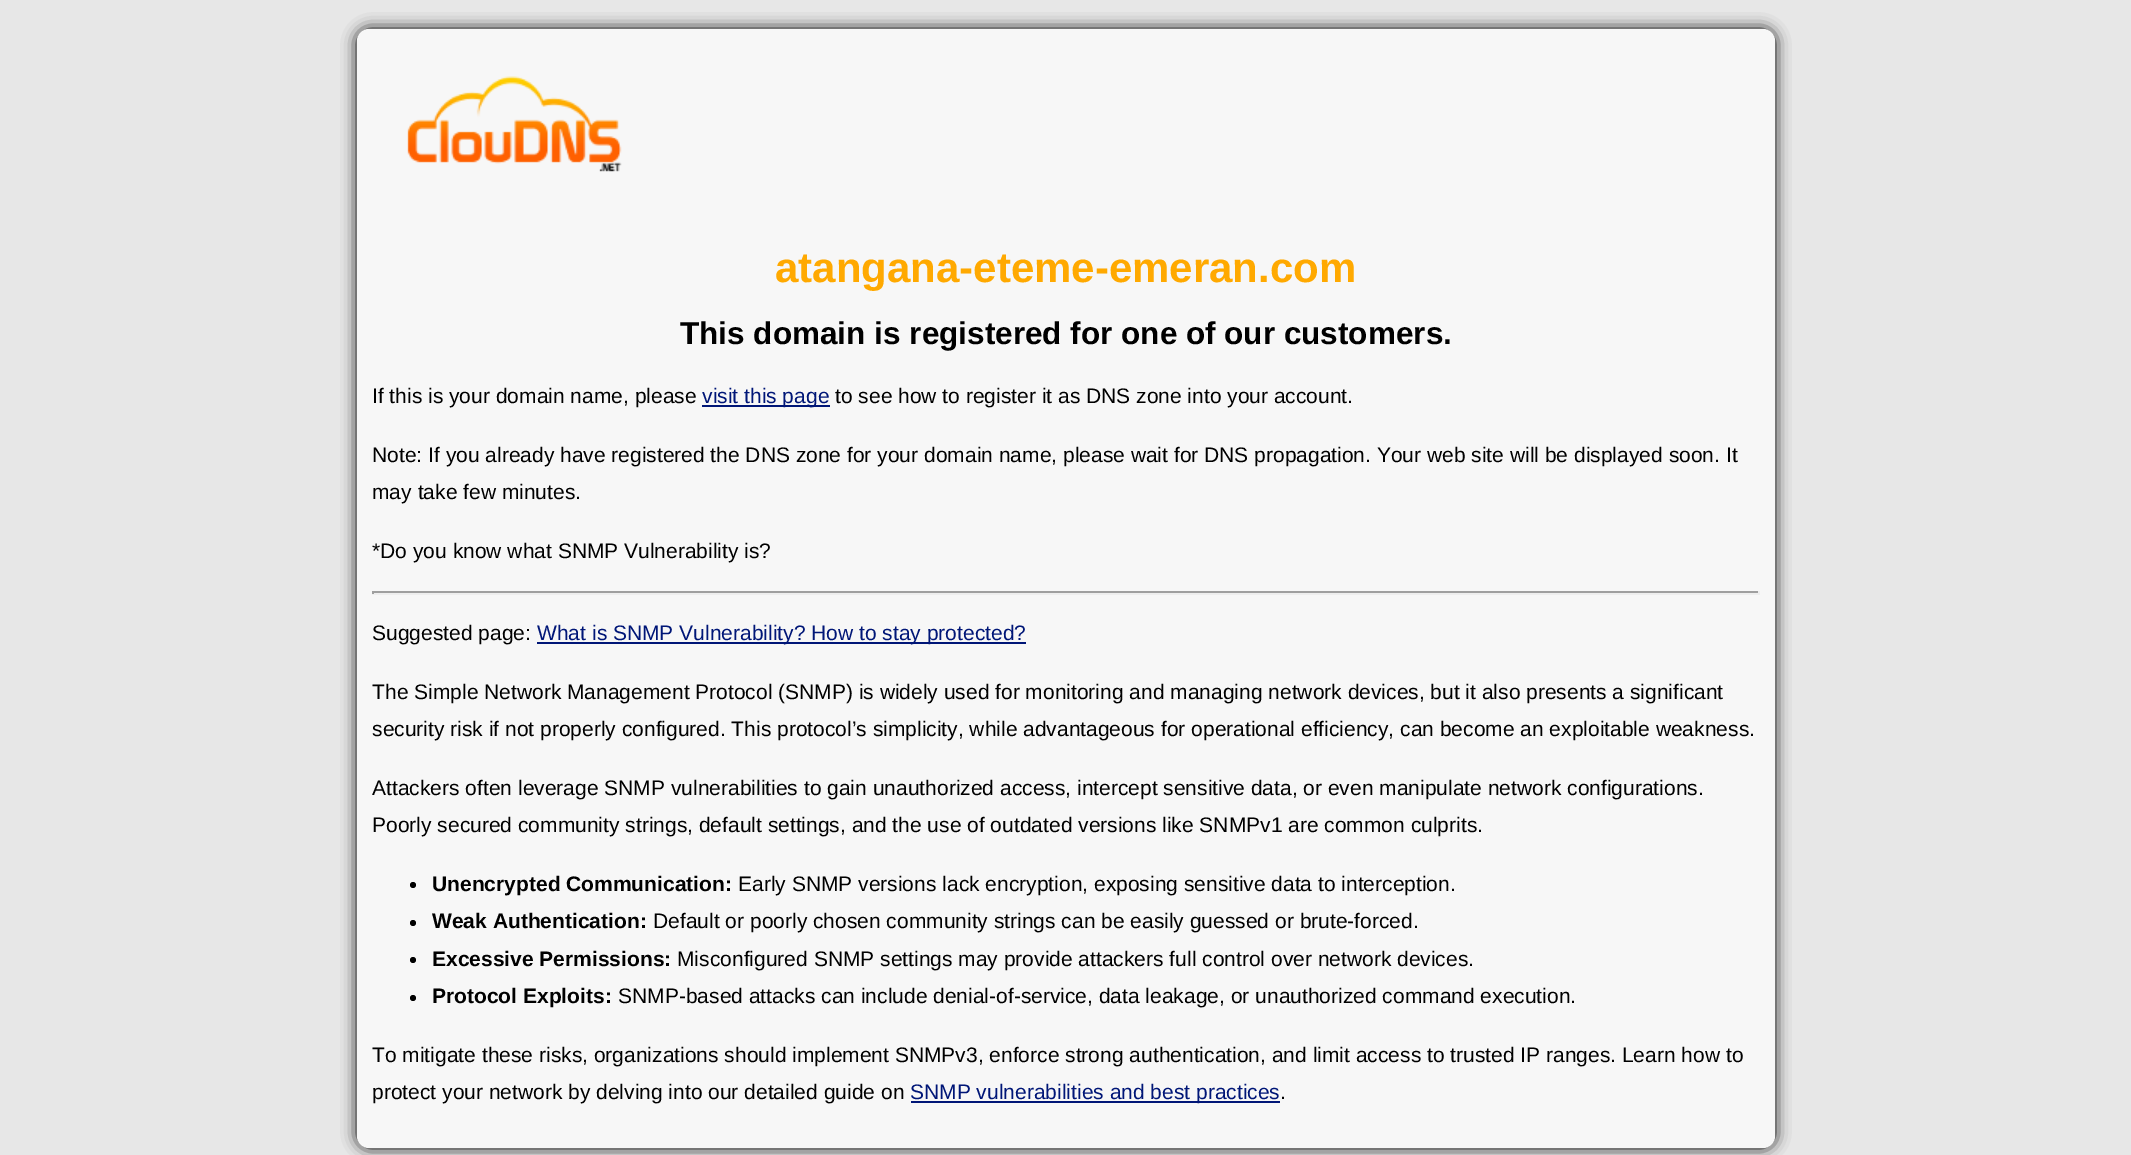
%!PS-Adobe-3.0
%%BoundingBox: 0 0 2131 1155
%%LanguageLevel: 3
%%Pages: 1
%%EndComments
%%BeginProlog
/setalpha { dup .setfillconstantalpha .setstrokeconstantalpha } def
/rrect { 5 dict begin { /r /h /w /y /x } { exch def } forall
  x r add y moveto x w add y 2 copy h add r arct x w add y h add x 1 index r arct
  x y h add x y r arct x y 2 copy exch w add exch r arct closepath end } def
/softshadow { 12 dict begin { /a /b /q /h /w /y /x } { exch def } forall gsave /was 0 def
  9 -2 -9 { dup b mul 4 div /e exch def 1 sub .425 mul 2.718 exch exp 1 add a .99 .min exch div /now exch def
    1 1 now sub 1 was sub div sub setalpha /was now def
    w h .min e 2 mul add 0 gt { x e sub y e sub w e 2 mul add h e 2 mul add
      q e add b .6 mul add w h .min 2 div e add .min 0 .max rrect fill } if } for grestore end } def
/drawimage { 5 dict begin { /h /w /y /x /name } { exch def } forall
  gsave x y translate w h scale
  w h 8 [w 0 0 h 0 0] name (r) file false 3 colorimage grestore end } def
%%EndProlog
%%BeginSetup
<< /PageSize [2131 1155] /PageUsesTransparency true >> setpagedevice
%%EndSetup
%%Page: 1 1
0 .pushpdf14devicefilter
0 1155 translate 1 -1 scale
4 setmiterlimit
0.906 setgray
0 0 2131 1155 rectfill
0 setgray
357 29 1418 1119 12 7.5 1 softshadow
0.969 setgray
357 29 1418 1119 12 rrect fill
(images/1.raw) 407 76 215 96 drawimage
0 0.086 0.467 setrgbcolor
702 405 128 2 rectfill
0.624 setgray
372 591 1388 2 rectfill
0.933 setgray
1758 591 2 3 rectfill
372 593 1388 2 rectfill
0.624 setgray
372 591 2 3 rectfill
0 0.086 0.467 setrgbcolor
537 642 489 2 rectfill
0 setgray
newpath 413 885 3 0 360 arc closepath fill
newpath 413 923 3 0 360 arc closepath fill
newpath 413 960 3 0 360 arc closepath fill
newpath 413 998 3 0 360 arc closepath fill
0 0.086 0.467 setrgbcolor
911 1101 369 2 rectfill
/LiberationSans-Bold [42 0 0 -42 0 0] selectfont
1 0.663 0 setrgbcolor
775 282 moveto (atangana-eteme-emeran.com) show
/LiberationSans-Bold [31.5 0 0 -31.5 0 0] selectfont
0 setgray
680 344 moveto (This domain is registered for one of our customers.) show
/LiberationSans-Regular [21 0 0 -21 0 0] selectfont
372 403 moveto (If this is your domain name, please) show
0 0.086 0.467 setrgbcolor
702 403 moveto (visit this page) show
0 setgray
835 403 moveto (to see how to register it as DNS zone into your account.) show
372 462 moveto (Note: If you already have registered the DNS zone for your domain name, please wait for DNS propagation. Your web site will be displayed soon. It) show
372 499 moveto (may take few minutes.) show
372 558 moveto (*Do you know what SNMP Vulnerability is?) show
372 640 moveto (Suggested page:) show
0 0.086 0.467 setrgbcolor
537 640 moveto (What is SNMP Vulnerability? How to stay protected?) show
0 setgray
372 699 moveto (The Simple Network Management Protocol \(SNMP\) is widely used for monitoring and managing network devices, but it also presents a significant) show
372 736 moveto (security risk if not properly configured. This protocol’s simplicity, while advantageous for operational efficiency, can become an exploitable weakness.) show
372 795 moveto (Attackers often leverage SNMP vulnerabilities to gain unauthorized access, intercept sensitive data, or even manipulate network configurations.) show
372 832 moveto (Poorly secured community strings, default settings, and the use of outdated versions like SNMPv1 are common culprits.) show
/LiberationSans-Bold [21 0 0 -21 0 0] selectfont
432 891 moveto (Unencrypted Communication:) show
/LiberationSans-Regular [21 0 0 -21 0 0] selectfont
738 891 moveto (Early SNMP versions lack encryption, exposing sensitive data to interception.) show
/LiberationSans-Bold [21 0 0 -21 0 0] selectfont
432 928 moveto (Weak Authentication:) show
/LiberationSans-Regular [21 0 0 -21 0 0] selectfont
653 928 moveto (Default or poorly chosen community strings can be easily guessed or brute-forced.) show
/LiberationSans-Bold [21 0 0 -21 0 0] selectfont
432 966 moveto (Excessive Permissions:) show
/LiberationSans-Regular [21 0 0 -21 0 0] selectfont
677 966 moveto (Misconfigured SNMP settings may provide attackers full control over network devices.) show
/LiberationSans-Bold [21 0 0 -21 0 0] selectfont
432 1003 moveto (Protocol Exploits:) show
/LiberationSans-Regular [21 0 0 -21 0 0] selectfont
618 1003 moveto (SNMP-based attacks can include denial-of-service, data leakage, or unauthorized command execution.) show
372 1062 moveto (To mitigate these risks, organizations should implement SNMPv3, enforce strong authentication, and limit access to trusted IP ranges. Learn how to) show
372 1099 moveto (protect your network by delving into our detailed guide on) show
0 0.086 0.467 setrgbcolor
910 1099 moveto (SNMP vulnerabilities and best practices) show
0 setgray
1280 1099 moveto (.) show
.poppdf14devicefilter showpage
%%EOF
